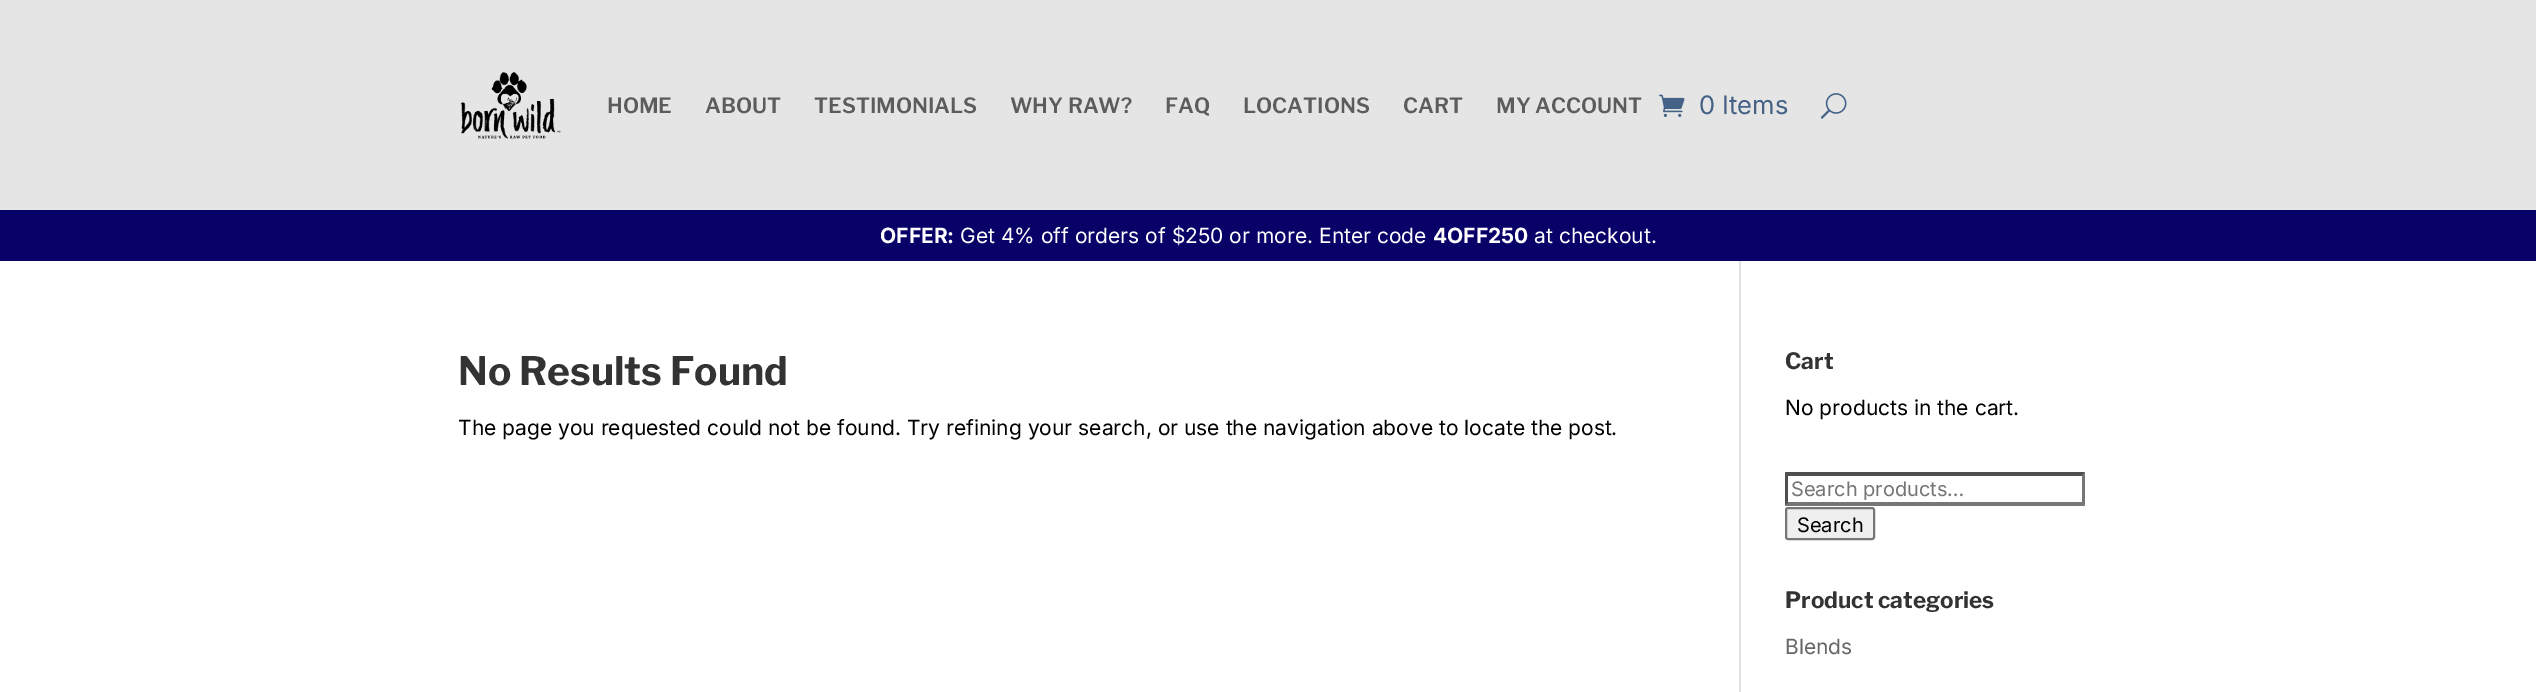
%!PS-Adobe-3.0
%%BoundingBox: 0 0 2536 692
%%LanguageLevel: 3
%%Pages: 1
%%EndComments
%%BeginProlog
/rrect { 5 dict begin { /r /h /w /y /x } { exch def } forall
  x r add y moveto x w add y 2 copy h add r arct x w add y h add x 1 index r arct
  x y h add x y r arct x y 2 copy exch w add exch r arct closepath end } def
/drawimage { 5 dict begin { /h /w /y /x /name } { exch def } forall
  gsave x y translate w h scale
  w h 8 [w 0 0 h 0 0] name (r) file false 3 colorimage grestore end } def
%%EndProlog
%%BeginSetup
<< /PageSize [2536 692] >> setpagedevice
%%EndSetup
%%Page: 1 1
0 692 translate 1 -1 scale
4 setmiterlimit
1 setgray
0 0 2536 692 rectfill
0.898 setgray
0 0 2536 210 rectfill
(images/1.raw) 460 72 101 67 drawimage
(images/2.raw) 1659 94 26 23 drawimage
(images/3.raw) 1820 93 27 26 drawimage
0.031 0.008 0.408 setrgbcolor
0 210 2536 51 rectfill
0.886 setgray
1739 261 2 431 rectfill
0.31 setgray
newpath 1785 472 moveto 2085 472 lineto 2082 476 lineto 1788 476 lineto closepath fill
0.463 setgray
newpath 2085 472.5 moveto 2085 505.5 lineto 2082 502.5 lineto 2082 475.5 lineto closepath fill
newpath 2085 506 moveto 1785 506 lineto 1788 502 lineto 2082 502 lineto closepath fill
0.31 setgray
newpath 1785 505.5 moveto 1785 472.5 lineto 1788 475.5 lineto 1788 502.5 lineto closepath fill
0.937 setgray
1786 508 88 31 2 rrect gsave fill grestore
0.463 setgray
2 setlinewidth
stroke
/LibreFranklin-SemiBold [21 0 0 -21 0 0] selectfont
0.361 setgray
607 113 moveto (HOME) show
705 113 moveto (ABOUT) show
814 113 moveto (TESTIMONIALS) show
1010 113 moveto (WHY RAW?) show
1165 113 moveto (FAQ) show
1243 113 moveto (LOCATIONS) show
1403 113 moveto (CART) show
1496 113 moveto (MY ACCOUNT) show
/Inter-Regular [25.5 0 0 -25.5 0 0] selectfont
0.263 0.384 0.525 setrgbcolor
1699 114 moveto (0 Items) show
/Inter-Bold [21 0 0 -21 0 0] selectfont
1 setgray
880 243 moveto (OFFER:) show
/Inter-Regular [21 0 0 -21 0 0] selectfont
960 243 moveto (Get 4% off orders of $250 or more. Enter code) show
/Inter-Bold [21 0 0 -21 0 0] selectfont
1433 243 moveto (4OFF250) show
/Inter-Regular [21 0 0 -21 0 0] selectfont
1534 243 moveto (at checkout.) show
/LibreFranklin-Bold [39 0 0 -39 0 0] selectfont
0.2 setgray
458 385 moveto (No Results Found) show
/Inter-Regular [21 0 0 -21 0 0] selectfont
0 setgray
458 435 moveto (The page you requested could not be found. Try refining your search, or use the navigation above to locate the post.) show
/LibreFranklin-Bold [22.5 0 0 -22.5 0 0] selectfont
0.2 setgray
1785 369 moveto (Cart) show
/Inter-Regular [21 0 0 -21 0 0] selectfont
0 setgray
1785 415 moveto (No products in the cart.) show
/Inter-Regular [20 0 0 -20 0 0] selectfont
0.459 setgray
1791 496 moveto (Search products…) show
0 setgray
1797 532 moveto (Search) show
/LibreFranklin-Bold [22.5 0 0 -22.5 0 0] selectfont
0.2 setgray
1785 608 moveto (Product categories) show
/Inter-Regular [21 0 0 -21 0 0] selectfont
0.4 setgray
1785 654 moveto (Blends) show
showpage
%%EOF
